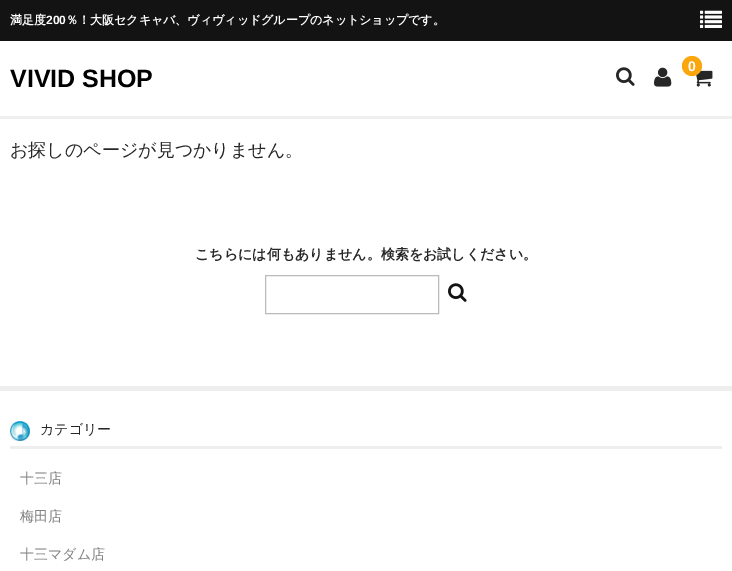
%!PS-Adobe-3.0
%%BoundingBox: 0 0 732 571
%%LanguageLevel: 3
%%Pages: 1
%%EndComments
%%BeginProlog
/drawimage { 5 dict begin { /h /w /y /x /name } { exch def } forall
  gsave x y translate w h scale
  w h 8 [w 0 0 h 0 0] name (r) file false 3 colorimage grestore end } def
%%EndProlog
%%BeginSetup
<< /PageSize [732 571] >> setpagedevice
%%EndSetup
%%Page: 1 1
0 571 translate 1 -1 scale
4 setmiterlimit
1 setgray
0 0 732 571 rectfill
0.937 setgray
0 116 732 3 rectfill
0.075 setgray
0 0 732 41 rectfill
(images/1.raw) 616 67 19 19 drawimage
(images/2.raw) 654 67 18 20 drawimage
(images/3.raw) 696 70 17 17 drawimage
0.984 0.651 0.051 setrgbcolor
newpath 692 66 10 0 360 arc closepath fill
(images/4.raw) 700 10 22 18 drawimage
0.733 setgray
265.5 275.5 173 38 rectstroke
(images/5.raw) 448 283 19 19 drawimage
0.933 setgray
0 386 732 5 rectfill
10 446 712 3 rectfill
(images/6.raw) 10 421 20 20 drawimage
/WenQuanYiZenHei-Bold [12 0 0 -12 0 0] selectfont
1 setgray
10 24 moveto (満足度) show
/LiberationSans-Bold [12 0 0 -12 0 0] selectfont
46 24 moveto (200) show
/WenQuanYiZenHei-Bold [12 0 0 -12 0 0] selectfont
66 24 moveto (％！大阪セクキャバ、ヴィヴィッドグループのネットショップです。) show
/LiberationSans-Bold [14 0 0 -14 0 0] selectfont
688 71 moveto (0) show
/LiberationSans-Bold [25 0 0 -25 0 0] selectfont
0 setgray
10 87 moveto (VIVID SHOP) show
/WenQuanYiZenHei-Medium [18 0 0 -18 0 0] selectfont
0.149 setgray
10 156 moveto (お探しのページが見つかりません。) show
/WenQuanYiZenHei-Bold [14 0 0 -14 0 0] selectfont
195 259 moveto (こちらには何もありません。検索をお試しください。) show
/WenQuanYiZenHei-Medium [14 0 0 -14 0 0] selectfont
40 434 moveto (カテゴリー) show
0.502 setgray
20 483 moveto (十三店) show
20 521 moveto (梅田店) show
20 559 moveto (十三マダム店) show
showpage
%%EOF
